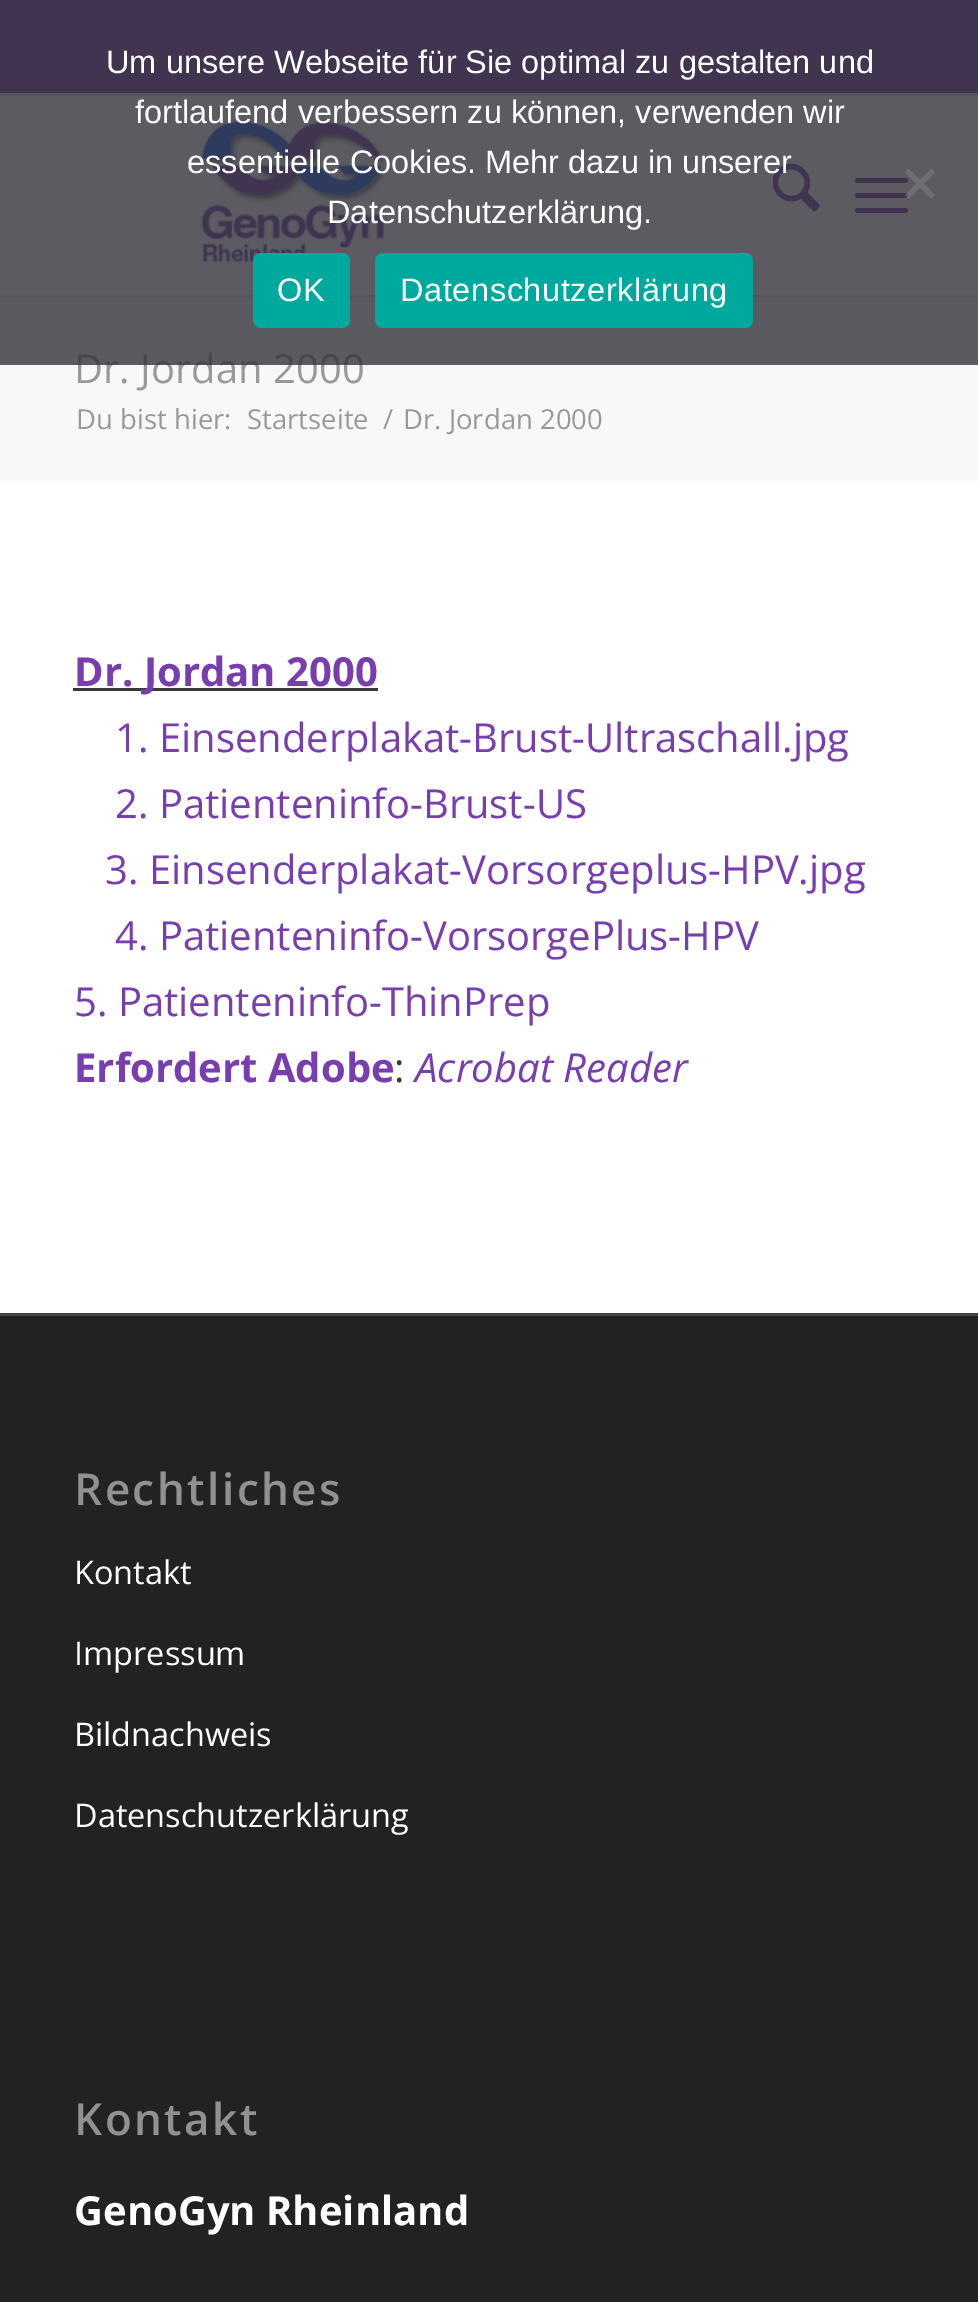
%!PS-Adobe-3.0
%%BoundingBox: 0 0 978 2302
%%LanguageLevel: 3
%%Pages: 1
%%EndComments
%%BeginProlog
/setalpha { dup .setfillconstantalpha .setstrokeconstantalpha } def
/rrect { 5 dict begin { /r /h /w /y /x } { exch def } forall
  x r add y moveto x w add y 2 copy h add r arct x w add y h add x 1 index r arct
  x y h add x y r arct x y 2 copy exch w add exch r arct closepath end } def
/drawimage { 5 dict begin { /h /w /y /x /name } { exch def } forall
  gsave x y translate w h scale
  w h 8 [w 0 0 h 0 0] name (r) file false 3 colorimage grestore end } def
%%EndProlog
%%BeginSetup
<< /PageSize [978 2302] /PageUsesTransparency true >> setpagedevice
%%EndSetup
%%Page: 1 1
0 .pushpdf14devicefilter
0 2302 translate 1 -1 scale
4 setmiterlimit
1 setgray
0 0 978 2302 rectfill
0.471 0.239 0.686 setrgbcolor
0 0 978 93 rectfill
0.882 setgray
0 93 978 3 rectfill
0 295 978 3 rectfill
(images/1.raw) 72 96 438 166 drawimage
(images/2.raw) 773 163 47 49 drawimage
0.471 0.239 0.686 setrgbcolor
855 193 53 5 2.5 rrect fill
855 178 53 5 2.5 rrect fill
855 208 53 5 2.5 rrect fill
0.973 setgray
0 298 978 183 rectfill
0.22 setgray
73 688 305 3 rectfill
0.133 setgray
0 1316 978 986 rectfill
0.267 setgray
0 1313 978 3 rectfill
/OpenSans-Regular [40 0 0 -40 0 0] selectfont
0.6 setgray
74 383 moveto (Dr. Jordan 2000) show
0.8 setalpha
0.196 0.196 0.227 setrgbcolor
0 0 978 365 rectfill
0.5 setalpha
0.502 setgray
newpath 931.5 168.5 moveto 935 172.5 lineto 908.5 199 lineto 905 195 lineto closepath fill
1 setalpha
0.431 0.431 0.443 setrgbcolor
newpath 905 172.5 moveto 908.5 168.5 lineto 935 195 lineto 931.5 199 lineto closepath fill
0 0.663 0.616 setrgbcolor
375 253 378 75 8 rrect fill
/LiberationSans-Regular [32.5 0 0 -32.5 0 0] selectfont
1 setgray
400 301 moveto 0.6 0 (Datenschutzerklärung) ashow
0 0.663 0.616 setrgbcolor
253 253 97 75 8 rrect fill
1 setgray
277 301 moveto 0.6 0 (OK) ashow
327 223 moveto (Datenschutzerklärung.) show
187 173 moveto (essentielle Cookies. Mehr dazu in unserer) show
135 123 moveto (fortlaufend verbessern zu können, verwenden wir) show
106 73 moveto (Um unsere Webseite für Sie optimal zu gestalten und) show
/OpenSans-Regular [27.5 0 0 -27.5 0 0] selectfont
0.6 setgray
76 429 moveto (Du bist hier:) show
247 429 moveto (Startseite) show
383 429 moveto (/) show
403 429 moveto (Dr. Jordan 2000) show
/OpenSans-Bold [40 0 0 -40 0 0] selectfont
0.471 0.239 0.686 setrgbcolor
74 686 moveto (Dr. Jordan 2000) show
/OpenSans-Regular [40 0 0 -40 0 0] selectfont
115 752 moveto (1. Einsenderplakat-Brust-Ultraschall.jpg) show
115 818 moveto (2. Patienteninfo-Brust-US) show
105 884 moveto (3. Einsenderplakat-Vorsorgeplus-HPV.jpg) show
115 950 moveto (4. Patienteninfo-VorsorgePlus-HPV) show
74 1016 moveto (5. Patienteninfo-ThinPrep) show
/OpenSans-Bold [40 0 0 -40 0 0] selectfont
74 1082 moveto (Erfordert Adobe) show
/OpenSans-Regular [40 0 0 -40 0 0] selectfont
0.22 setgray
394 1082 moveto (:) show
/OpenSans-Italic [40 0 0 -40 0 0] selectfont
0.471 0.239 0.686 setrgbcolor
415 1082 moveto (Acrobat Reader) show
/OpenSans-SemiBold [44 0 0 -44 0 0] selectfont
0.569 setgray
74 1505 moveto 2.5 0 (Rechtliches) ashow
/OpenSans-Regular [32.5 0 0 -32.5 0 0] selectfont
1 setgray
74 1584 moveto (Kontakt) show
74 1665 moveto (Impressum) show
74 1746 moveto (Bildnachweis) show
74 1827 moveto (Datenschutzerklärung) show
/OpenSans-SemiBold [44 0 0 -44 0 0] selectfont
0.569 setgray
74 2135 moveto 2.5 0 (Kontakt) ashow
/OpenSans-Bold [40 0 0 -40 0 0] selectfont
1 setgray
74 2225 moveto (GenoGyn Rheinland) show
.poppdf14devicefilter showpage
%%EOF
